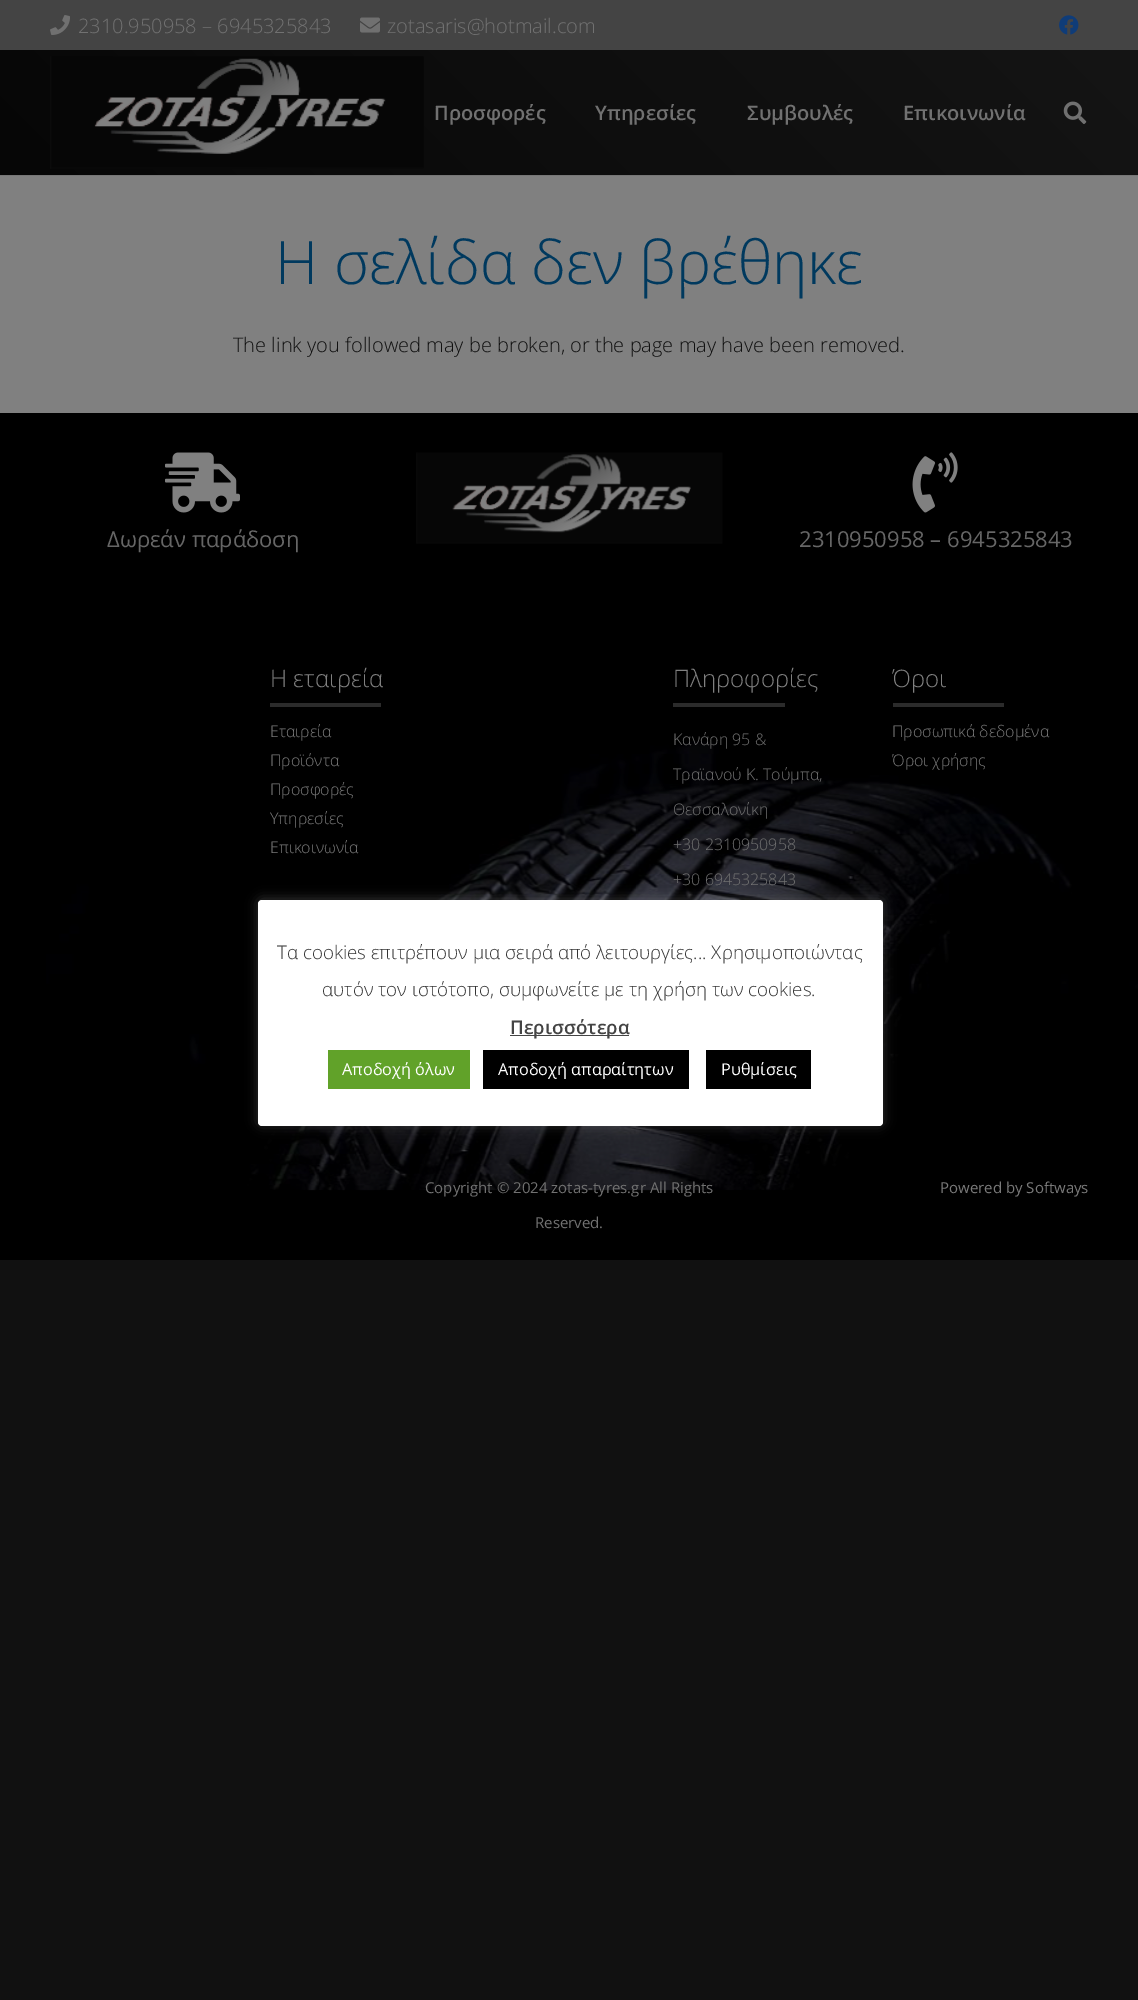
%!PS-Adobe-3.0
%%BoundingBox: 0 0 1138 2000
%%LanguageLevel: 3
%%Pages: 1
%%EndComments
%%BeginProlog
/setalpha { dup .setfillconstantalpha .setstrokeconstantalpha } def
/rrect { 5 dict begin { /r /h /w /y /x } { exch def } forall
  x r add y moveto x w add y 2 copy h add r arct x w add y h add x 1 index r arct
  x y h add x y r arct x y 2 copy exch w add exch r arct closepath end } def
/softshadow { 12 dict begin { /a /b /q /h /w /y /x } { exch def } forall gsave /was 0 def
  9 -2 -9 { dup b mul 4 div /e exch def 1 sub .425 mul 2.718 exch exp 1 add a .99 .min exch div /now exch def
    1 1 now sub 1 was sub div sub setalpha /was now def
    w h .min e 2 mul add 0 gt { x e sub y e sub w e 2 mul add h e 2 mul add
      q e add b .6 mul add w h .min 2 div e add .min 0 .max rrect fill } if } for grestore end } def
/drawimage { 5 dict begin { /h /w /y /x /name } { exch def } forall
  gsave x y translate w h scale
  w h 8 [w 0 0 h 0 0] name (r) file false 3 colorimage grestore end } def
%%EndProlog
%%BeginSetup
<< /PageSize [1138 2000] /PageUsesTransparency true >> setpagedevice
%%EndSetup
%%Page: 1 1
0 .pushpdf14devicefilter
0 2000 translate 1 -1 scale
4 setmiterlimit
0.067 setgray
0 0 1138 2000 rectfill
0.502 setgray
0 176 1138 237 rectfill
0.267 setgray
0 0 1138 50 rectfill
(images/1.raw) 50 15 20 20 drawimage
(images/2.raw) 360 17 20 16 drawimage
(images/3.raw) 1059 15 20 20 drawimage
0.463 setgray
newpath 0 175 moveto 0 176 lineto 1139 176 lineto 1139 51 lineto 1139 175 lineto closepath fill
gsave newpath 0 50 moveto 1138 50 lineto 1138 175 lineto 0 175 lineto closepath clip newpath
<< /ShadingType 2 /ColorSpace /DeviceRGB /Coords [885 -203 253 428] /Extend [true true] /Function << /FunctionType 2 /Domain [0 1] /C0 [0.082 0.082 0.082] /C1 [0.024 0.024 0.024] /N 1 >> >> shfill grestore
(images/4.raw) 50 56 374 113 drawimage
(images/5.raw) 1063 101 24 23 drawimage
0 setgray
0 413 1138 847 rectfill
(images/6.raw) 165 452 75 61 drawimage
(images/7.raw) 416 452 307 92 drawimage
(images/8.raw) 912 452 46 61 drawimage
0.169 setgray
270 703 111 4 rectfill
673 703 112 4 rectfill
893 703 111 4 rectfill
(images/9.raw) 46 741 1092 450 drawimage
0.675 0.671 0.671 setrgbcolor
258 899 625 226 4 6 0.3 softshadow
1 setgray
258 900 625 226 4 rrect fill
0.267 setgray
510 1035 119 1 rectfill
0.38 0.635 0.161 setrgbcolor
328 1050 142 39 rectfill
0 setgray
483 1050 206 39 rectfill
706 1050 105 39 rectfill
/OpenSans-Light [20 0 0 -20 0 0] selectfont
0.443 setgray
78 33 moveto (2310.950958 – 6945325843) show
387 33 moveto (zotasaris@hotmail.com) show
/OpenSans-SemiBold [20 0 0 -20 0 0] selectfont
434 120 moveto (Προσφορές) show
595 120 moveto (Υπηρεσίες) show
747 120 moveto (Συμβουλές) show
903 120 moveto (Επικοινωνία) show
/OpenSans-Light [60 0 0 -60 0 0] selectfont
0 0.224 0.369 setrgbcolor
275 284 moveto (Η σελίδα δεν βρέθηκε) show
/OpenSans-Light [20 0 0 -20 0 0] selectfont
0.067 setgray
233 352 moveto (The link you followed may be broken, or the page may have been removed.) show
/OpenSans-Regular [22 0 0 -22 0 0] selectfont
0.4 setgray
107 547 moveto (Δωρεάν παράδοση) show
799 547 moveto (2310950958 – 6945325843) show
/OpenSans-Light [24 0 0 -24 0 0] selectfont
0.502 setgray
270 687 moveto (Η εταιρεία) show
/OpenSans-Light [16 0 0 -16 0 0] selectfont
0.475 setgray
270 737 moveto (Εταιρεία) show
270 766 moveto (Προϊόντα) show
270 795 moveto (Προσφορές) show
270 824 moveto (Υπηρεσίες) show
270 853 moveto (Επικοινωνία) show
/OpenSans-Light [24 0 0 -24 0 0] selectfont
0.502 setgray
673 687 moveto (Πληροφορίες) show
/OpenSans-Light [16 0 0 -16 0 0] selectfont
0.443 setgray
673 745 moveto (Κανάρη 95 &) show
673 780 moveto (Τραϊανού Κ. Τούμπα,) show
673 815 moveto (Θεσσαλονίκη) show
673 850 moveto (+30 2310950958) show
673 885 moveto (+30 6945325843) show
/OpenSans-Light [24 0 0 -24 0 0] selectfont
0.502 setgray
892 687 moveto (Όροι) show
/OpenSans-Light [16 0 0 -16 0 0] selectfont
0.475 setgray
892 737 moveto (Προσωπικά δεδομένα) show
892 766 moveto (Όροι χρήσης) show
/OpenSans-Regular [15 0 0 -15 0 0] selectfont
0.443 setgray
425 1193 moveto (Copyright © 2024 zotas-tyres.gr All Rights) show
535 1228 moveto (Reserved.) show
0.475 setgray
940 1193 moveto (Powered by Softways) show
/OpenSans-Light [18.75 0 0 -18.75 0 0] selectfont
0.2 setgray
277 959 moveto (Τα cookies επιτρέπουν μια σειρά από λειτουργίες... Χρησιμοποιώντας) show
322 996 moveto (αυτόν τον ιστότοπο, συμφωνείτε με τη χρήση των cookies.) show
/OpenSans-SemiBold [18.75 0 0 -18.75 0 0] selectfont
0.267 setgray
510 1034 moveto (Περισσότερα) show
/OpenSans-Regular [16.25 0 0 -16.25 0 0] selectfont
1 setgray
342 1075 moveto (Αποδοχή όλων) show
498 1075 moveto (Αποδοχή απαραίτητων) show
721 1075 moveto (Ρυθμίσεις) show
.poppdf14devicefilter showpage
%%EOF
